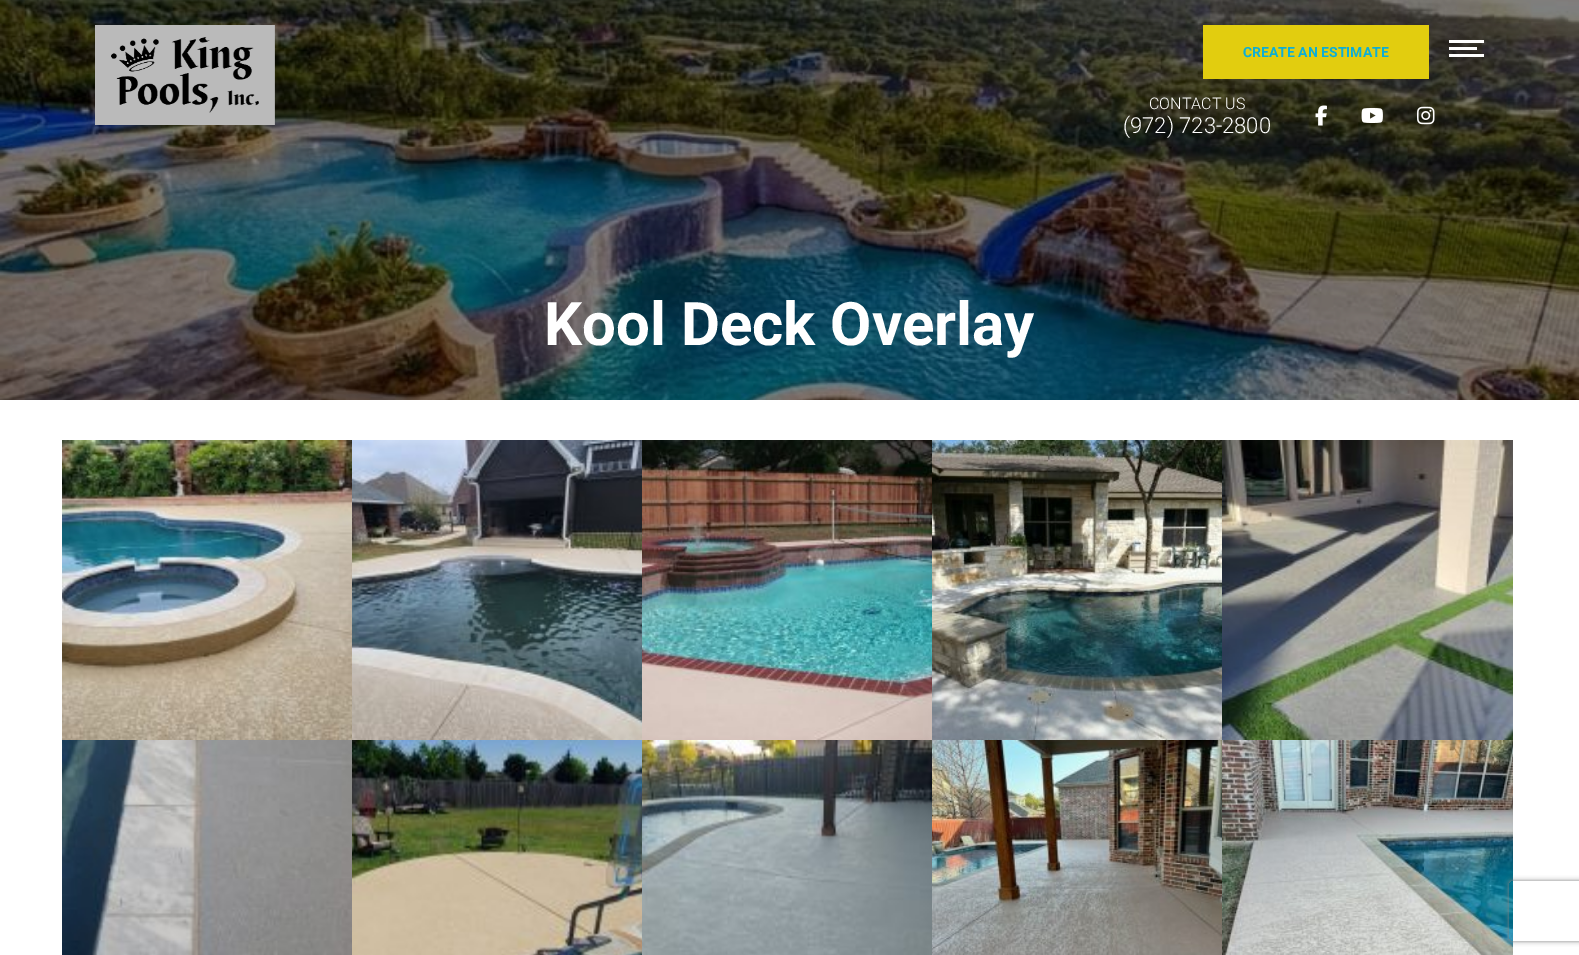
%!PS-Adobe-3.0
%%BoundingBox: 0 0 1579 955
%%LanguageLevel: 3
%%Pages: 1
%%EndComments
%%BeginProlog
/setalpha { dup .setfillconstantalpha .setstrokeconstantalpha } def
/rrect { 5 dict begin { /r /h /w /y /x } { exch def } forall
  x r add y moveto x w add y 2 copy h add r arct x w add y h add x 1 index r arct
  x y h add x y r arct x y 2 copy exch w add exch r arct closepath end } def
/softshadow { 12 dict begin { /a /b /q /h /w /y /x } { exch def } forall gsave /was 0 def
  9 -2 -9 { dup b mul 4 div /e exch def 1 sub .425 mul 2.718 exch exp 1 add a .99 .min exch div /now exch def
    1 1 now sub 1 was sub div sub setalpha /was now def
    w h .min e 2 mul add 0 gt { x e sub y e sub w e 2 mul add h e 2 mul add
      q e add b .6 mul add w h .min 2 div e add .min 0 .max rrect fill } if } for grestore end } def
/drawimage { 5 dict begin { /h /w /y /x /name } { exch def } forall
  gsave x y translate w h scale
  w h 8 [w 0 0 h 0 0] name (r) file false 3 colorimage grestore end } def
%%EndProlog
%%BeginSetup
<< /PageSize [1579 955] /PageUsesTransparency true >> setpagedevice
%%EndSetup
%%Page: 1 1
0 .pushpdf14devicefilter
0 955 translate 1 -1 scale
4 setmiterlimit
1 setgray
0 0 1579 955 rectfill
(images/5.raw) 0 0 1579 400 drawimage
(images/1.raw) 95 25 180 100 drawimage
0.886 0.804 0.059 setrgbcolor
1203 25 226 54 rectfill
(images/2.raw) 1315 105 12 21 drawimage
(images/3.raw) 1361 108 22 15 drawimage
(images/4.raw) 1417 106 18 19 drawimage
1 setgray
1449 40 35 3 rectfill
1449 47 28 3 rectfill
1449 54 35 3 rectfill
(images/6.raw) 62 440 290 300 drawimage
(images/7.raw) 352 440 290 300 drawimage
(images/8.raw) 642 440 290 300 drawimage
(images/9.raw) 932 440 290 300 drawimage
(images/10.raw) 1222 440 291 300 drawimage
(images/11.raw) 62 740 290 215 drawimage
(images/12.raw) 352 740 290 215 drawimage
(images/13.raw) 642 740 290 215 drawimage
(images/14.raw) 932 740 290 215 drawimage
(images/15.raw) 1222 740 291 215 drawimage
gsave
newpath 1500 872 moveto 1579 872 lineto 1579 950 lineto 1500 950 lineto closepath 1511 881 moveto 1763 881 lineto 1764 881 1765 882 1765 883 curveto 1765 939 lineto 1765 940 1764 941 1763 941 curveto 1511 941 lineto 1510 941 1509 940 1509 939 curveto 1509 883 lineto 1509 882 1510 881 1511 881 curveto closepath eoclip newpath
0.502 setgray
1509 881 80 60 2 2.5 1 softshadow
grestore
/Roboto-Bold [14 0 0 -14 0 0] selectfont
0.055 0.682 0.839 setrgbcolor
1243 57 moveto (CREATE AN ESTIMATE) show
/Roboto-Light [16 0 0 -16 0 0] selectfont
1 setgray
1149 109 moveto (CONTACT US) show
/Roboto-Light [22 0 0 -22 0 0] selectfont
1123 133 moveto (\(972\) 723-2800) show
/Roboto-Bold [60 0 0 -60 0 0] selectfont
544 345 moveto (Kool Deck Overlay) show
.poppdf14devicefilter showpage
%%EOF
